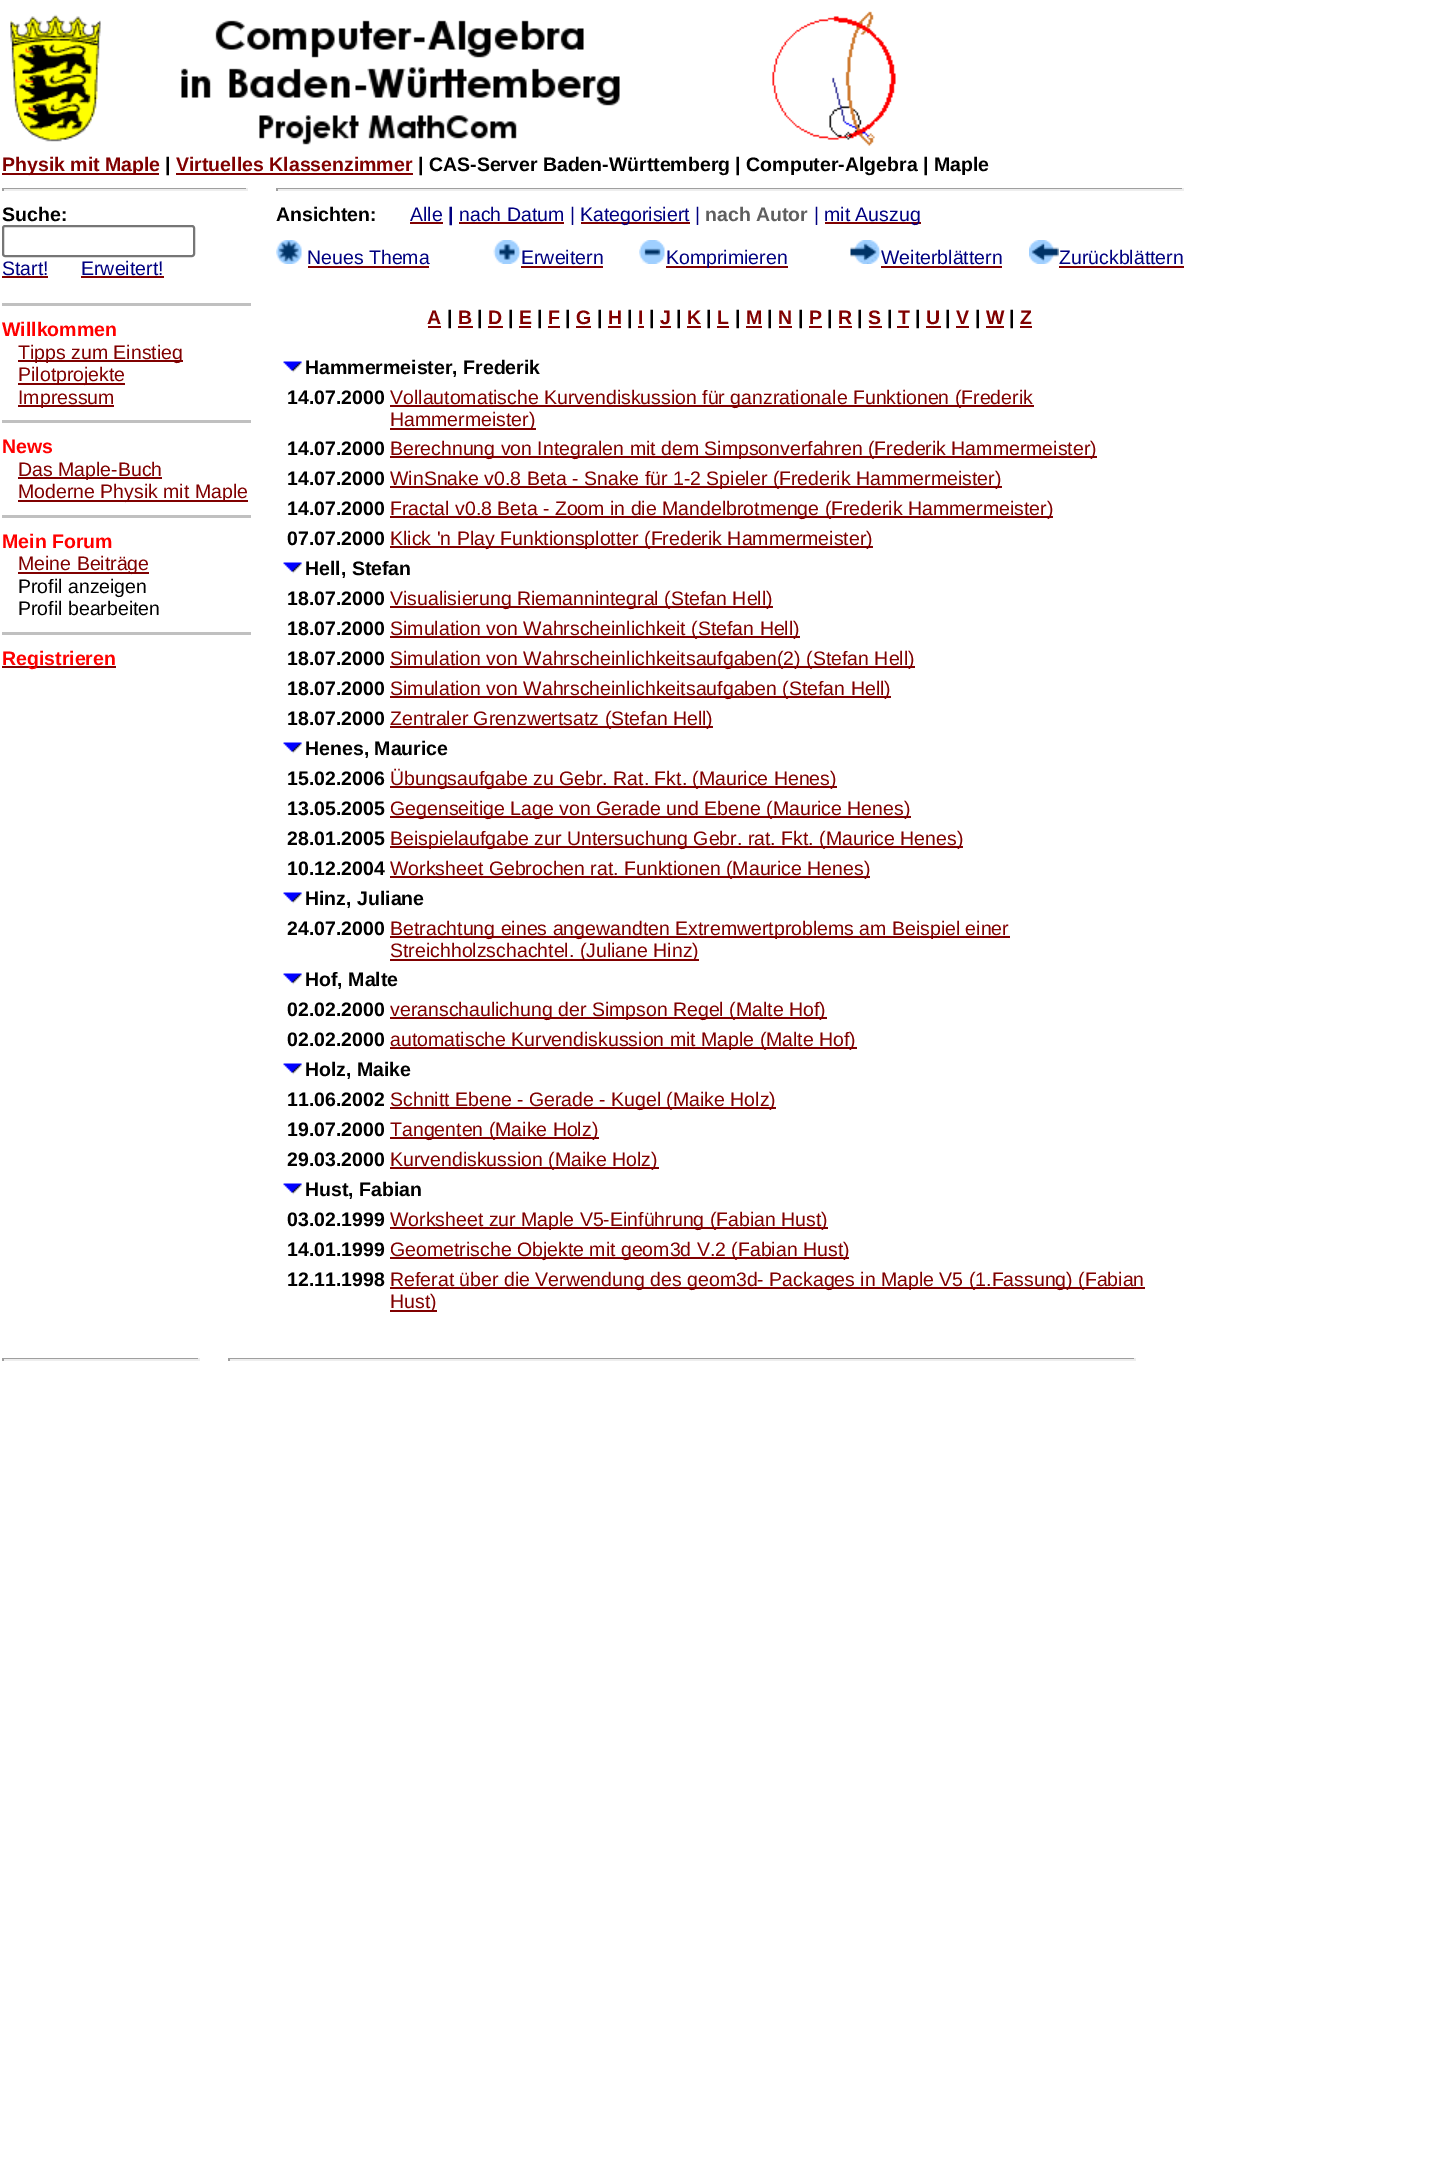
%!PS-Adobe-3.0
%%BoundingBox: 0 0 1451 2169
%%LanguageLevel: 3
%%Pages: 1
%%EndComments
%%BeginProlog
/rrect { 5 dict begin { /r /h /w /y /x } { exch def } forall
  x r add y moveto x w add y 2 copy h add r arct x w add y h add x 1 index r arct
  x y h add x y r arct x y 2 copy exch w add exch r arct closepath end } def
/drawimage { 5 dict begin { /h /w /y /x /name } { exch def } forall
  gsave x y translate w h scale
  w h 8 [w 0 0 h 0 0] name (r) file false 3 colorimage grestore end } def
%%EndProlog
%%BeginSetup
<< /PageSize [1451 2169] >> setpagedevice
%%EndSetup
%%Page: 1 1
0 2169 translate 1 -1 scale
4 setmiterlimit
1 setgray
0 0 1451 2169 rectfill
(images/1.raw) 10 14 610 131 drawimage
(images/2.raw) 772 11 124 135 drawimage
0.502 0 0 setrgbcolor
2 173 157 2 rectfill
176 173 237 2 rectfill
0.624 setgray
2 188 246 1 rectfill
0.933 setgray
246 188 2 3 rectfill
2 189 246 2 rectfill
0.624 setgray
2 188 2 3 rectfill
0.463 setgray
2 setlinewidth
3 226 191 30 2 rrect stroke
0.502 0 0 setrgbcolor
2 276 46 2 rectfill
81 276 83 2 rectfill
0.753 setgray
2 303 249 3 rectfill
0.502 0 0 setrgbcolor
18 360 165 2 rectfill
18 383 107 2 rectfill
18 405 96 2 rectfill
0.753 setgray
2 420 249 3 rectfill
0.502 0 0 setrgbcolor
18 477 144 2 rectfill
18 500 230 2 rectfill
0.753 setgray
2 515 249 3 rectfill
0.502 0 0 setrgbcolor
18 572 131 2 rectfill
0.753 setgray
2 632 249 3 rectfill
0.502 0 0 setrgbcolor
2 666 114 2 rectfill
0.624 setgray
276 188 908 1 rectfill
0.933 setgray
1182 188 2 3 rectfill
276 189 908 2 rectfill
0.624 setgray
276 188 2 3 rectfill
0.502 0 0 setrgbcolor
410 222 33 2 rectfill
459 222 105 2 rectfill
581 222 109 2 rectfill
825 222 96 2 rectfill
(images/3.raw) 276 240 26 24 drawimage
308 266 121 2 rectfill
(images/4.raw) 493 240 28 24 drawimage
521 266 82 2 rectfill
(images/5.raw) 639 240 26 24 drawimage
666 266 122 2 rectfill
(images/6.raw) 850 240 31 24 drawimage
881 266 121 2 rectfill
(images/7.raw) 1029 240 30 24 drawimage
1059 266 125 2 rectfill
428 326 13 2 rectfill
458 326 15 2 rectfill
488 326 15 2 rectfill
519 326 12 2 rectfill
548 326 12 2 rectfill
576 326 15 2 rectfill
608 326 13 2 rectfill
638 326 6 2 rectfill
660 326 11 2 rectfill
687 326 14 2 rectfill
717 326 12 2 rectfill
746 326 16 2 rectfill
779 326 13 2 rectfill
809 326 13 2 rectfill
839 326 13 2 rectfill
869 326 13 2 rectfill
897 326 12 2 rectfill
926 326 15 2 rectfill
956 326 13 2 rectfill
986 326 18 2 rectfill
1020 326 12 2 rectfill
(images/8.raw) 283 361 19 12 drawimage
390 405 644 2 rectfill
390 428 146 2 rectfill
390 456 707 2 rectfill
390 486 612 2 rectfill
390 516 663 2 rectfill
390 546 483 2 rectfill
(images/8.raw) 283 562 19 12 drawimage
390 606 383 2 rectfill
390 636 410 2 rectfill
390 666 525 2 rectfill
390 696 501 2 rectfill
390 726 323 2 rectfill
(images/8.raw) 283 742 19 12 drawimage
390 786 447 2 rectfill
390 816 521 2 rectfill
390 846 573 2 rectfill
390 876 480 2 rectfill
(images/8.raw) 283 892 19 12 drawimage
390 936 620 2 rectfill
390 959 309 2 rectfill
(images/8.raw) 283 973 19 12 drawimage
390 1017 437 2 rectfill
390 1047 467 2 rectfill
(images/8.raw) 283 1063 19 12 drawimage
390 1107 386 2 rectfill
390 1137 209 2 rectfill
390 1167 269 2 rectfill
(images/8.raw) 283 1183 19 12 drawimage
390 1227 438 2 rectfill
390 1257 459 2 rectfill
390 1287 755 2 rectfill
390 1310 47 2 rectfill
0.624 setgray
2 1358 198 1 rectfill
0.933 setgray
198 1358 2 3 rectfill
2 1359 198 2 rectfill
0.624 setgray
2 1358 2 3 rectfill
228 1358 908 1 rectfill
0.933 setgray
1134 1358 2 3 rectfill
228 1359 908 2 rectfill
0.624 setgray
228 1358 2 3 rectfill
/LiberationSans-Bold [19.5 0 0 -19.5 0 0] selectfont
0.502 0 0 setrgbcolor
2 171 moveto (Physik mit Maple) show
0 setgray
165 171 moveto (|) show
0.502 0 0 setrgbcolor
176 171 moveto (Virtuelles Klassenzimmer) show
0 setgray
418 171 moveto (| CAS-Server Baden-Württemberg | Computer-Algebra | Maple) show
2 221 moveto (Suche:) show
/LiberationSans-Regular [19.5 0 0 -19.5 0 0] selectfont
0 0 0.502 setrgbcolor
2 275 moveto (Start!) show
81 275 moveto (Erweitert!) show
/LiberationSans-Bold [19.5 0 0 -19.5 0 0] selectfont
1 0 0 setrgbcolor
2 336 moveto (Willkommen) show
/LiberationSans-Regular [19.5 0 0 -19.5 0 0] selectfont
0.502 0 0 setrgbcolor
18 359 moveto (Tipps zum Einstieg) show
18 381 moveto (Pilotprojekte) show
18 404 moveto (Impressum) show
/LiberationSans-Bold [19.5 0 0 -19.5 0 0] selectfont
1 0 0 setrgbcolor
2 453 moveto (News) show
/LiberationSans-Regular [19.5 0 0 -19.5 0 0] selectfont
0.502 0 0 setrgbcolor
18 476 moveto (Das Maple-Buch) show
18 498 moveto (Moderne Physik mit Maple) show
/LiberationSans-Bold [19.5 0 0 -19.5 0 0] selectfont
1 0 0 setrgbcolor
2 548 moveto (Mein Forum) show
/LiberationSans-Regular [19.5 0 0 -19.5 0 0] selectfont
0.502 0 0 setrgbcolor
18 570 moveto (Meine Beiträge) show
0 setgray
18 593 moveto (Profil anzeigen) show
18 615 moveto (Profil bearbeiten) show
/LiberationSans-Bold [19.5 0 0 -19.5 0 0] selectfont
1 0 0 setrgbcolor
2 665 moveto (Registrieren) show
0 setgray
276 221 moveto (Ansichten:) show
/LiberationSans-Regular [19.5 0 0 -19.5 0 0] selectfont
0 0 0.502 setrgbcolor
410 221 moveto (Alle) show
/LiberationSans-Bold [19.5 0 0 -19.5 0 0] selectfont
448 221 moveto (|) show
/LiberationSans-Regular [19.5 0 0 -19.5 0 0] selectfont
459 221 moveto (nach Datum |) show
580 221 moveto (Kategorisiert |) show
/LiberationSans-Bold [19.5 0 0 -19.5 0 0] selectfont
0.373 setgray
705 221 moveto (nach Autor) show
/LiberationSans-Regular [19.5 0 0 -19.5 0 0] selectfont
0 0 0.502 setrgbcolor
814 221 moveto (|) show
824 221 moveto (mit Auszug) show
307 264 moveto (Neues Thema) show
521 264 moveto (Erweitern) show
666 264 moveto (Komprimieren) show
881 264 moveto (Weiterblättern) show
1059 264 moveto (Zurückblättern) show
/LiberationSans-Bold [19.5 0 0 -19.5 0 0] selectfont
0.502 0 0 setrgbcolor
427 324 moveto (A) show
0 setgray
447 324 moveto (|) show
0.502 0 0 setrgbcolor
458 324 moveto (B) show
0 setgray
477 324 moveto (|) show
0.502 0 0 setrgbcolor
488 324 moveto (D) show
0 setgray
508 324 moveto (|) show
0.502 0 0 setrgbcolor
519 324 moveto (E) show
0 setgray
537 324 moveto (|) show
0.502 0 0 setrgbcolor
548 324 moveto (F) show
0 setgray
565 324 moveto (|) show
0.502 0 0 setrgbcolor
576 324 moveto (G) show
0 setgray
597 324 moveto (|) show
0.502 0 0 setrgbcolor
608 324 moveto (H) show
0 setgray
627 324 moveto (|) show
0.502 0 0 setrgbcolor
638 324 moveto (I) show
0 setgray
649 324 moveto (|) show
0.502 0 0 setrgbcolor
660 324 moveto (J) show
0 setgray
676 324 moveto (|) show
0.502 0 0 setrgbcolor
687 324 moveto (K) show
0 setgray
706 324 moveto (|) show
0.502 0 0 setrgbcolor
717 324 moveto (L) show
0 setgray
735 324 moveto (|) show
0.502 0 0 setrgbcolor
746 324 moveto (M) show
0 setgray
767 324 moveto (|) show
0.502 0 0 setrgbcolor
778 324 moveto (N) show
0 setgray
798 324 moveto (|) show
0.502 0 0 setrgbcolor
809 324 moveto (P) show
0 setgray
827 324 moveto (|) show
0.502 0 0 setrgbcolor
838 324 moveto (R) show
0 setgray
857 324 moveto (|) show
0.502 0 0 setrgbcolor
868 324 moveto (S) show
0 setgray
887 324 moveto (|) show
0.502 0 0 setrgbcolor
898 324 moveto (T) show
0 setgray
915 324 moveto (|) show
0.502 0 0 setrgbcolor
926 324 moveto (U) show
0 setgray
945 324 moveto (|) show
0.502 0 0 setrgbcolor
956 324 moveto (V) show
0 setgray
975 324 moveto (|) show
0.502 0 0 setrgbcolor
986 324 moveto (W) show
0 setgray
1009 324 moveto (|) show
0.502 0 0 setrgbcolor
1020 324 moveto (Z) show
0 setgray
305 374 moveto (Hammermeister, Frederik) show
287 404 moveto (14.07.2000) show
/LiberationSans-Regular [19.5 0 0 -19.5 0 0] selectfont
0.502 0 0 setrgbcolor
390 404 moveto (Vollautomatische Kurvendiskussion für ganzrationale Funktionen \(Frederik) show
390 426 moveto (Hammermeister\)) show
/LiberationSans-Bold [19.5 0 0 -19.5 0 0] selectfont
0 setgray
287 455 moveto (14.07.2000) show
/LiberationSans-Regular [19.5 0 0 -19.5 0 0] selectfont
0.502 0 0 setrgbcolor
390 455 moveto (Berechnung von Integralen mit dem Simpsonverfahren \(Frederik Hammermeister\)) show
/LiberationSans-Bold [19.5 0 0 -19.5 0 0] selectfont
0 setgray
287 485 moveto (14.07.2000) show
/LiberationSans-Regular [19.5 0 0 -19.5 0 0] selectfont
0.502 0 0 setrgbcolor
390 485 moveto (WinSnake v0.8 Beta - Snake für 1-2 Spieler \(Frederik Hammermeister\)) show
/LiberationSans-Bold [19.5 0 0 -19.5 0 0] selectfont
0 setgray
287 515 moveto (14.07.2000) show
/LiberationSans-Regular [19.5 0 0 -19.5 0 0] selectfont
0.502 0 0 setrgbcolor
390 515 moveto (Fractal v0.8 Beta - Zoom in die Mandelbrotmenge \(Frederik Hammermeister\)) show
/LiberationSans-Bold [19.5 0 0 -19.5 0 0] selectfont
0 setgray
287 545 moveto (07.07.2000) show
/LiberationSans-Regular [19.5 0 0 -19.5 0 0] selectfont
0.502 0 0 setrgbcolor
390 545 moveto (Klick 'n Play Funktionsplotter \(Frederik Hammermeister\)) show
/LiberationSans-Bold [19.5 0 0 -19.5 0 0] selectfont
0 setgray
305 575 moveto (Hell, Stefan) show
287 605 moveto (18.07.2000) show
/LiberationSans-Regular [19.5 0 0 -19.5 0 0] selectfont
0.502 0 0 setrgbcolor
390 605 moveto (Visualisierung Riemannintegral \(Stefan Hell\)) show
/LiberationSans-Bold [19.5 0 0 -19.5 0 0] selectfont
0 setgray
287 635 moveto (18.07.2000) show
/LiberationSans-Regular [19.5 0 0 -19.5 0 0] selectfont
0.502 0 0 setrgbcolor
390 635 moveto (Simulation von Wahrscheinlichkeit \(Stefan Hell\)) show
/LiberationSans-Bold [19.5 0 0 -19.5 0 0] selectfont
0 setgray
287 665 moveto (18.07.2000) show
/LiberationSans-Regular [19.5 0 0 -19.5 0 0] selectfont
0.502 0 0 setrgbcolor
390 665 moveto (Simulation von Wahrscheinlichkeitsaufgaben\(2\) \(Stefan Hell\)) show
/LiberationSans-Bold [19.5 0 0 -19.5 0 0] selectfont
0 setgray
287 695 moveto (18.07.2000) show
/LiberationSans-Regular [19.5 0 0 -19.5 0 0] selectfont
0.502 0 0 setrgbcolor
390 695 moveto (Simulation von Wahrscheinlichkeitsaufgaben \(Stefan Hell\)) show
/LiberationSans-Bold [19.5 0 0 -19.5 0 0] selectfont
0 setgray
287 725 moveto (18.07.2000) show
/LiberationSans-Regular [19.5 0 0 -19.5 0 0] selectfont
0.502 0 0 setrgbcolor
390 725 moveto (Zentraler Grenzwertsatz \(Stefan Hell\)) show
/LiberationSans-Bold [19.5 0 0 -19.5 0 0] selectfont
0 setgray
305 755 moveto (Henes, Maurice) show
287 785 moveto (15.02.2006) show
/LiberationSans-Regular [19.5 0 0 -19.5 0 0] selectfont
0.502 0 0 setrgbcolor
390 785 moveto (Übungsaufgabe zu Gebr. Rat. Fkt. \(Maurice Henes\)) show
/LiberationSans-Bold [19.5 0 0 -19.5 0 0] selectfont
0 setgray
287 815 moveto (13.05.2005) show
/LiberationSans-Regular [19.5 0 0 -19.5 0 0] selectfont
0.502 0 0 setrgbcolor
390 815 moveto (Gegenseitige Lage von Gerade und Ebene \(Maurice Henes\)) show
/LiberationSans-Bold [19.5 0 0 -19.5 0 0] selectfont
0 setgray
287 845 moveto (28.01.2005) show
/LiberationSans-Regular [19.5 0 0 -19.5 0 0] selectfont
0.502 0 0 setrgbcolor
390 845 moveto (Beispielaufgabe zur Untersuchung Gebr. rat. Fkt. \(Maurice Henes\)) show
/LiberationSans-Bold [19.5 0 0 -19.5 0 0] selectfont
0 setgray
287 875 moveto (10.12.2004) show
/LiberationSans-Regular [19.5 0 0 -19.5 0 0] selectfont
0.502 0 0 setrgbcolor
390 875 moveto (Worksheet Gebrochen rat. Funktionen \(Maurice Henes\)) show
/LiberationSans-Bold [19.5 0 0 -19.5 0 0] selectfont
0 setgray
305 905 moveto (Hinz, Juliane) show
287 935 moveto (24.07.2000) show
/LiberationSans-Regular [19.5 0 0 -19.5 0 0] selectfont
0.502 0 0 setrgbcolor
390 935 moveto (Betrachtung eines angewandten Extremwertproblems am Beispiel einer) show
390 957 moveto (Streichholzschachtel. \(Juliane Hinz\)) show
/LiberationSans-Bold [19.5 0 0 -19.5 0 0] selectfont
0 setgray
305 986 moveto (Hof, Malte) show
287 1016 moveto (02.02.2000) show
/LiberationSans-Regular [19.5 0 0 -19.5 0 0] selectfont
0.502 0 0 setrgbcolor
390 1016 moveto (veranschaulichung der Simpson Regel \(Malte Hof\)) show
/LiberationSans-Bold [19.5 0 0 -19.5 0 0] selectfont
0 setgray
287 1046 moveto (02.02.2000) show
/LiberationSans-Regular [19.5 0 0 -19.5 0 0] selectfont
0.502 0 0 setrgbcolor
390 1046 moveto (automatische Kurvendiskussion mit Maple \(Malte Hof\)) show
/LiberationSans-Bold [19.5 0 0 -19.5 0 0] selectfont
0 setgray
305 1076 moveto (Holz, Maike) show
287 1106 moveto (11.06.2002) show
/LiberationSans-Regular [19.5 0 0 -19.5 0 0] selectfont
0.502 0 0 setrgbcolor
390 1106 moveto (Schnitt Ebene - Gerade - Kugel \(Maike Holz\)) show
/LiberationSans-Bold [19.5 0 0 -19.5 0 0] selectfont
0 setgray
287 1136 moveto (19.07.2000) show
/LiberationSans-Regular [19.5 0 0 -19.5 0 0] selectfont
0.502 0 0 setrgbcolor
390 1136 moveto (Tangenten \(Maike Holz\)) show
/LiberationSans-Bold [19.5 0 0 -19.5 0 0] selectfont
0 setgray
287 1166 moveto (29.03.2000) show
/LiberationSans-Regular [19.5 0 0 -19.5 0 0] selectfont
0.502 0 0 setrgbcolor
390 1166 moveto (Kurvendiskussion \(Maike Holz\)) show
/LiberationSans-Bold [19.5 0 0 -19.5 0 0] selectfont
0 setgray
305 1196 moveto (Hust, Fabian) show
287 1226 moveto (03.02.1999) show
/LiberationSans-Regular [19.5 0 0 -19.5 0 0] selectfont
0.502 0 0 setrgbcolor
390 1226 moveto (Worksheet zur Maple V5-Einführung \(Fabian Hust\)) show
/LiberationSans-Bold [19.5 0 0 -19.5 0 0] selectfont
0 setgray
287 1256 moveto (14.01.1999) show
/LiberationSans-Regular [19.5 0 0 -19.5 0 0] selectfont
0.502 0 0 setrgbcolor
390 1256 moveto (Geometrische Objekte mit geom3d V.2 \(Fabian Hust\)) show
/LiberationSans-Bold [19.5 0 0 -19.5 0 0] selectfont
0 setgray
287 1286 moveto (12.11.1998) show
/LiberationSans-Regular [19.5 0 0 -19.5 0 0] selectfont
0.502 0 0 setrgbcolor
390 1286 moveto (Referat über die Verwendung des geom3d- Packages in Maple V5 \(1.Fassung\) \(Fabian) show
390 1308 moveto (Hust\)) show
showpage
%%EOF
